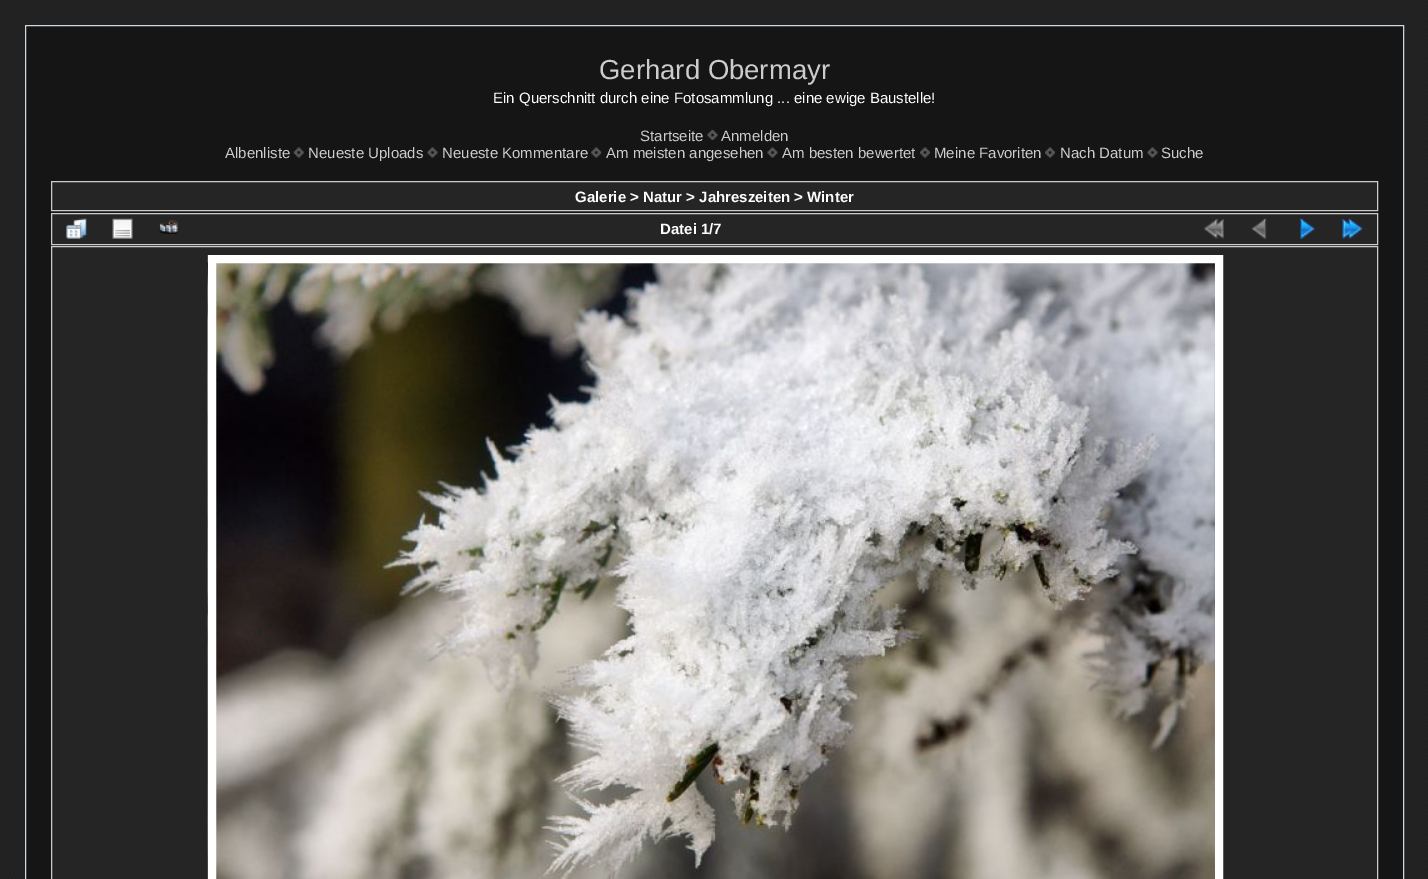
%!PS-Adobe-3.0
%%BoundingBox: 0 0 1428 879
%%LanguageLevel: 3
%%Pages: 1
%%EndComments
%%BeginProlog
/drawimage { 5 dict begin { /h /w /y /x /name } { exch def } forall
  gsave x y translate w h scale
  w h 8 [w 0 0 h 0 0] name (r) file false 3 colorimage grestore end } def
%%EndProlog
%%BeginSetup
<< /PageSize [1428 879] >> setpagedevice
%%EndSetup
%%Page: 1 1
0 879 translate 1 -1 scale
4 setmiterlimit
1 setgray
0 0 1428 879 rectfill
(images/1.raw) 0 0 1428 879 drawimage
0.082 setgray
newpath 25.5 25.5 moveto 1403.5 25.5 lineto 1403.5 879.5 lineto 25.5 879.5 lineto closepath gsave fill grestore
0.8 0.843 0.878 setrgbcolor
stroke
(images/2.raw) 707 130 11 10 drawimage
(images/3.raw) 293 147 11 11 drawimage
(images/4.raw) 427 147 11 11 drawimage
(images/5.raw) 591 147 11 11 drawimage
(images/4.raw) 767 147 11 11 drawimage
(images/6.raw) 920 147 10 11 drawimage
(images/7.raw) 1045 147 10 11 drawimage
(images/4.raw) 1147 147 11 11 drawimage
0.145 setgray
newpath 51.5 181.5 moveto 1377.5 181.5 lineto 1377.5 210.5 lineto 51.5 210.5 lineto closepath gsave fill grestore
0.8 setgray
stroke
0.145 setgray
newpath 51.5 213.5 moveto 1377.5 213.5 lineto 1377.5 244.5 lineto 51.5 244.5 lineto closepath gsave fill grestore
0.8 setgray
stroke
(images/8.raw) 66 218 21 21 drawimage
(images/9.raw) 112 218 21 21 drawimage
(images/10.raw) 159 220 19 14 drawimage
(images/11.raw) 1203 218 21 21 drawimage
(images/12.raw) 1251 218 16 21 drawimage
(images/13.raw) 1299 218 17 21 drawimage
(images/14.raw) 1342 218 21 21 drawimage
0.145 setgray
newpath 51.5 246.5 moveto 1377.5 246.5 lineto 1377.5 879.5 lineto 51.5 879.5 lineto closepath gsave fill grestore
0.8 setgray
stroke
(images/15.raw) 207 255 1008 624 drawimage
1 setgray
8 setlinewidth
212 259 1007 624 rectstroke
/LiberationSans-Regular [27.5 0 0 -27.5 0 0] selectfont
0.8 setgray
599 79 moveto (Gerhard Obermayr) show
/LiberationSans-Regular [15 0 0 -15 0 0] selectfont
1 setgray
493 103 moveto (Ein Querschnitt durch eine Fotosammlung ... eine ewige Baustelle!) show
0.8 setgray
640 141 moveto (Startseite) show
721 141 moveto (Anmelden) show
225 158 moveto (Albenliste) show
308 158 moveto (Neueste Uploads) show
442 158 moveto (Neueste Kommentare) show
606 158 moveto (Am meisten angesehen) show
782 158 moveto (Am besten bewertet) show
934 158 moveto (Meine Favoriten) show
1060 158 moveto (Nach Datum) show
1161 158 moveto (Suche) show
/LiberationSans-Bold [15 0 0 -15 0 0] selectfont
1 setgray
575 202 moveto (Galerie > Natur > Jahreszeiten > Winter) show
660 234 moveto (Datei 1/7) show
showpage
%%EOF
